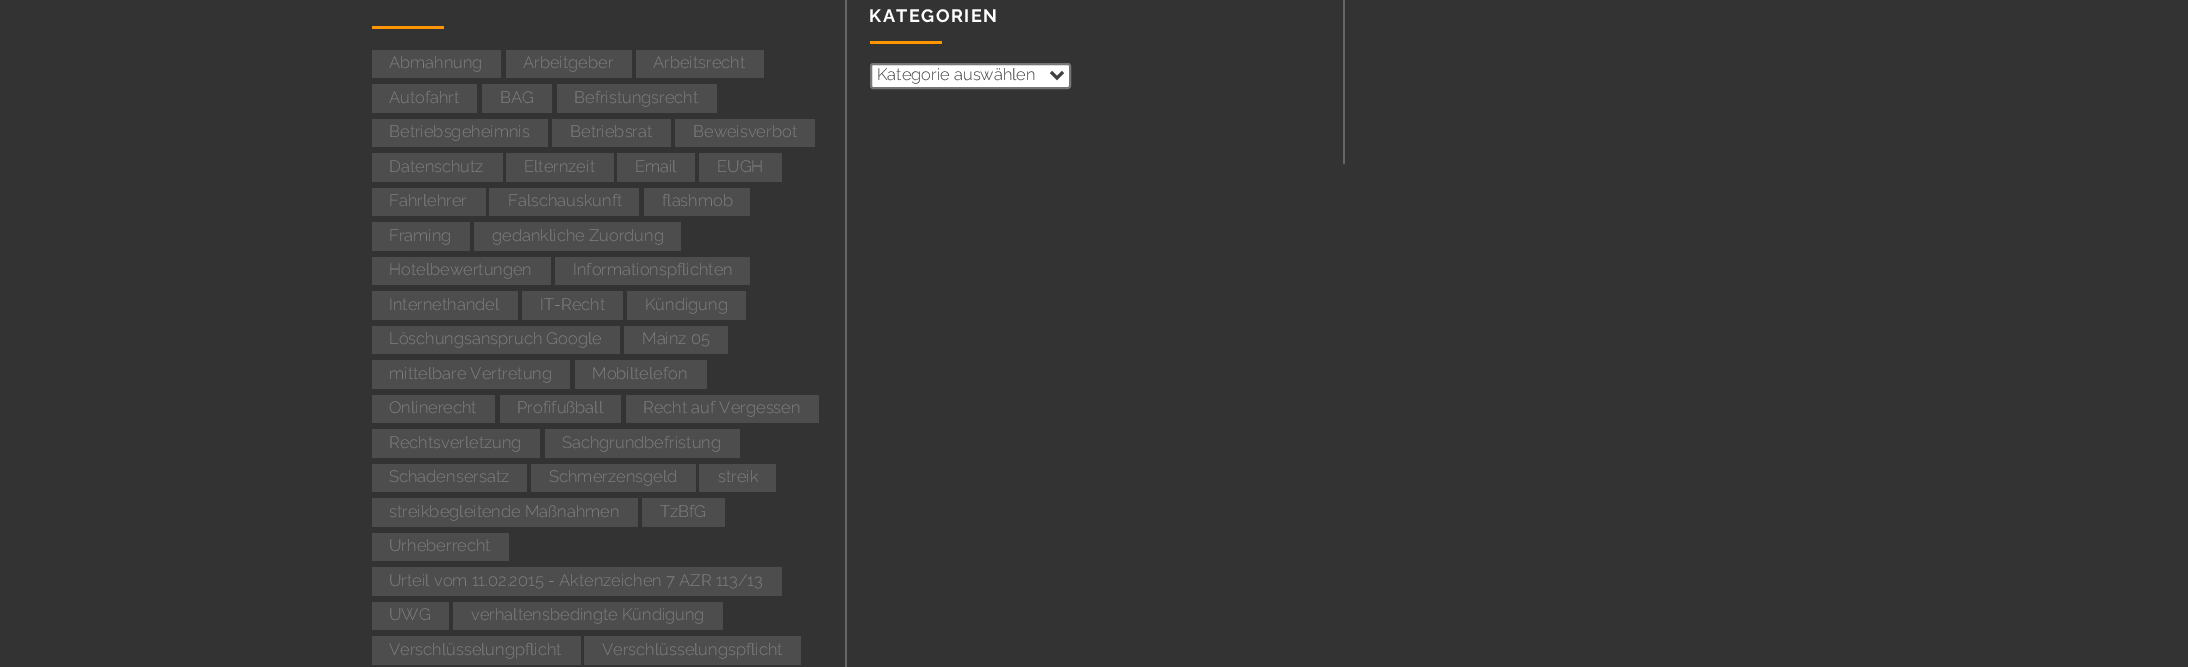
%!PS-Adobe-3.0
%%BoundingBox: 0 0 2188 667
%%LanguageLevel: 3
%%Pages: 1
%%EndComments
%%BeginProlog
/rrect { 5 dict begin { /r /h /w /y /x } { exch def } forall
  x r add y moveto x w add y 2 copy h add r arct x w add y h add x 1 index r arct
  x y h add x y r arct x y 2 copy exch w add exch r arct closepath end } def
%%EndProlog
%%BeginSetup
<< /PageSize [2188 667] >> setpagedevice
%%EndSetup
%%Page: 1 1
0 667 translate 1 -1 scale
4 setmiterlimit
0.2 setgray
0 0 2188 667 rectfill
0.4 setgray
1343 0 2 164 rectfill
1 0.588 0 setrgbcolor
870 41 72 3 rectfill
1 setgray
871 64 199 24 2 rrect gsave fill grestore
0.463 setgray
2 setlinewidth
stroke
0.251 setgray
3 setlinewidth
newpath 1051 72 moveto 1057 78 lineto 1063 72 lineto stroke
0.4 setgray
845 0 2 667 rectfill
1 0.588 0 setrgbcolor
372 26 72 3 rectfill
0.302 setgray
372 50 129 28 rectfill
506 50 126 28 rectfill
636 50 128 28 rectfill
372 84 105 29 rectfill
482 84 70 29 rectfill
557 84 160 29 rectfill
372 119 176 28 rectfill
552 119 119 28 rectfill
675 119 140 28 rectfill
372 153 131 29 rectfill
506 153 108 29 rectfill
617 153 78 29 rectfill
699 153 83 29 rectfill
372 188 114 28 rectfill
489 188 150 28 rectfill
644 188 106 28 rectfill
372 222 98 29 rectfill
474 222 207 29 rectfill
372 257 179 28 rectfill
555 257 195 28 rectfill
372 291 146 29 rectfill
522 291 101 29 rectfill
627 291 119 29 rectfill
372 326 248 28 rectfill
624 326 104 28 rectfill
372 360 198 29 rectfill
575 360 132 29 rectfill
372 395 123 28 rectfill
500 395 121 28 rectfill
626 395 193 28 rectfill
372 429 168 29 rectfill
545 429 195 29 rectfill
372 464 155 28 rectfill
531 464 165 28 rectfill
699 464 77 28 rectfill
372 498 266 29 rectfill
642 498 83 29 rectfill
372 533 137 28 rectfill
372 567 410 29 rectfill
372 602 77 28 rectfill
453 602 270 28 rectfill
372 636 209 29 rectfill
584 636 217 29 rectfill
/Raleway-Bold [18 0 0 -18 0 0] selectfont
1 setgray
869 22 moveto 1.5 0 (KATEGORIEN) ashow
/Raleway-Light [16.5 0 0 -16.5 0 0] selectfont
0.251 setgray
877 80 moveto (Kategorie auswählen) show
0.502 setgray
389 68 moveto (Abmahnung) show
523 68 moveto (Arbeitgeber) show
653 68 moveto (Arbeitsrecht) show
389 103 moveto (Autofahrt) show
500 103 moveto (BAG) show
574 103 moveto (Befristungsrecht) show
389 137 moveto (Betriebsgeheimnis) show
570 137 moveto (Betriebsrat) show
693 137 moveto (Beweisverbot) show
389 172 moveto (Datenschutz) show
524 172 moveto (Elternzeit) show
635 172 moveto (Email) show
717 172 moveto (EUGH) show
389 206 moveto (Fahrlehrer) show
508 206 moveto (Falschauskunft) show
662 206 moveto (flashmob) show
389 241 moveto (Framing) show
492 241 moveto (gedankliche Zuordung) show
389 275 moveto (Hotelbewertungen) show
573 275 moveto (Informationspflichten) show
389 310 moveto (Internethandel) show
540 310 moveto (IT-Recht) show
645 310 moveto (Kündigung) show
389 344 moveto (Löschungsanspruch Google) show
642 344 moveto (Mainz 05) show
389 379 moveto (mittelbare Vertretung) show
592 379 moveto (Mobiltelefon) show
389 413 moveto (Onlinerecht) show
517 413 moveto (Profifußball) show
643 413 moveto (Recht auf Vergessen) show
389 448 moveto (Rechtsverletzung) show
562 448 moveto (Sachgrundbefristung) show
389 482 moveto (Schadensersatz) show
549 482 moveto (Schmerzensgeld) show
718 482 moveto (streik) show
389 517 moveto (streikbegleitende Maßnahmen) show
660 517 moveto (TzBfG) show
389 551 moveto (Urheberrecht) show
389 586 moveto (Urteil vom 11.02.2015 - Aktenzeichen 7 AZR 113/13) show
389 620 moveto (UWG) show
471 620 moveto (verhaltensbedingte Kündigung) show
389 655 moveto (Verschlüsselungpflicht) show
602 655 moveto (Verschlüsselungspflicht) show
showpage
%%EOF
